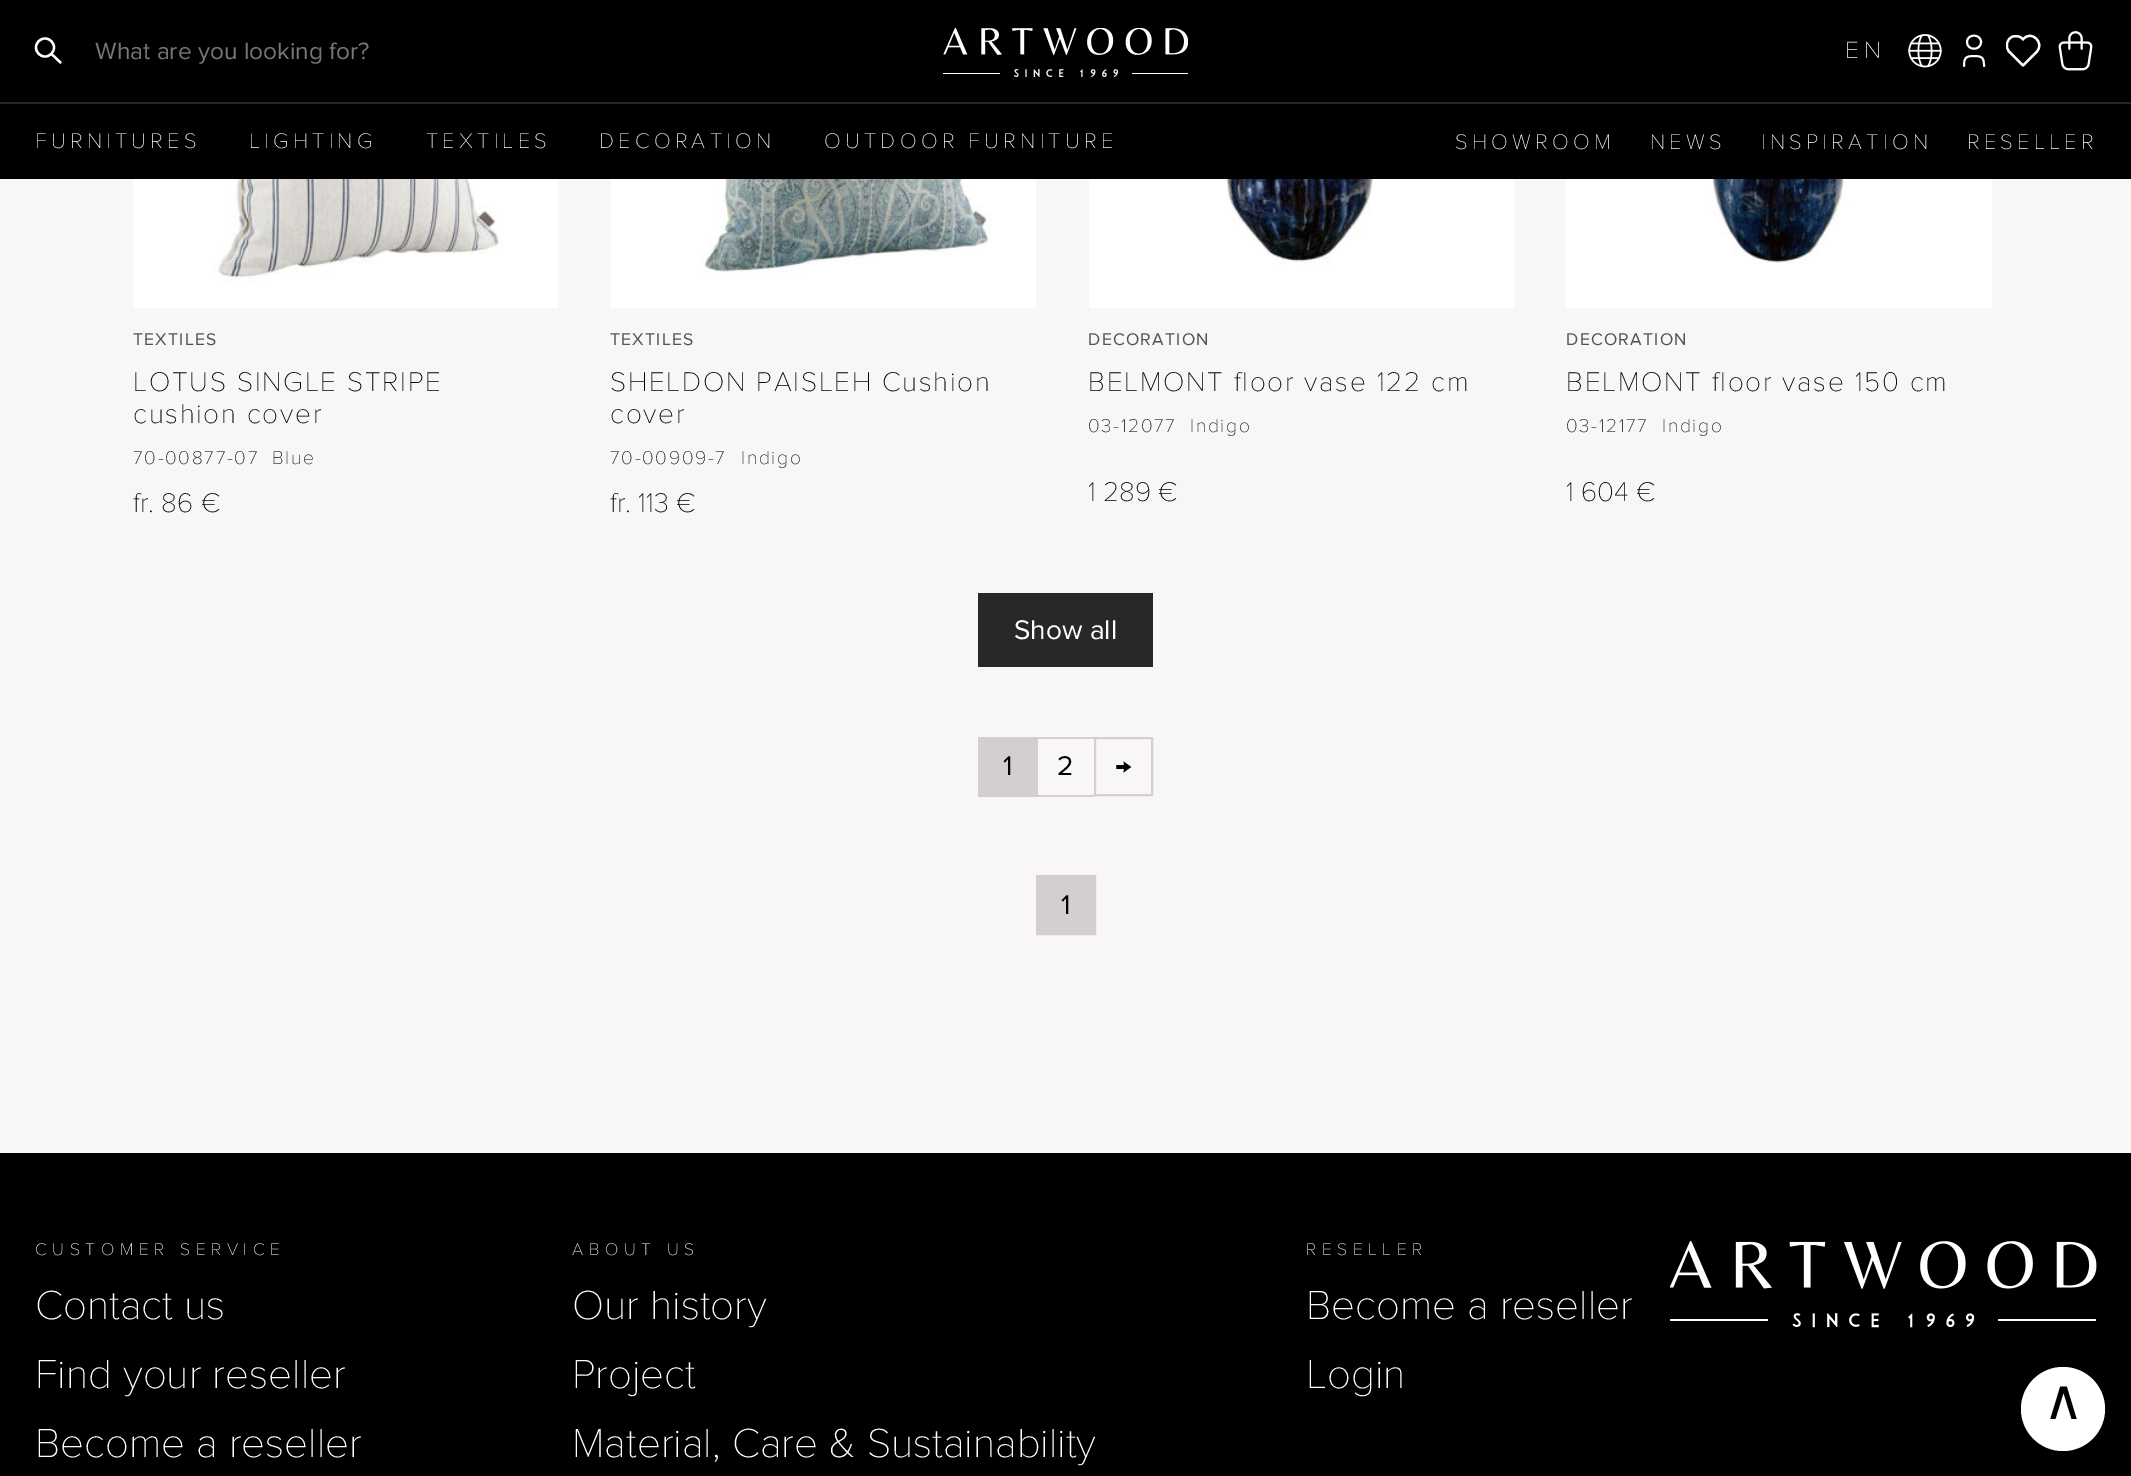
%!PS-Adobe-3.0
%%BoundingBox: 0 0 2131 1476
%%LanguageLevel: 3
%%Pages: 1
%%EndComments
%%BeginProlog
/drawimage { 5 dict begin { /h /w /y /x /name } { exch def } forall
  gsave x y translate w h scale
  w h 8 [w 0 0 h 0 0] name (r) file false 3 colorimage grestore end } def
%%EndProlog
%%BeginSetup
<< /PageSize [2131 1476] >> setpagedevice
%%EndSetup
%%Page: 1 1
0 1476 translate 1 -1 scale
4 setmiterlimit
0.973 0.969 0.965 setrgbcolor
0 0 2131 1476 rectfill
0 setgray
0 0 2131 179 rectfill
1 setgray
2.3 setlinewidth
newpath 45 47.5 9 0 360 arc closepath stroke
newpath 51.5 54 moveto 61 63 lineto stroke
(images/1.raw) 943 28 245 49 drawimage
(images/2.raw) 1908 34 34 34 drawimage
1.9 setlinewidth
1 setlinecap
1 setlinejoin
newpath 1967 42 moveto 1967 51 1981 51 1981 42 curveto 1981 33.5 1967 33.5 1967 42 curveto closepath 1964 66 moveto 1964 57.5 1965.5 56 1974 56 curveto 1982.5 56 1984 57.5 1984 66 curveto stroke
gsave
2006 33 35 35 rectclip
2.2 setlinewidth
newpath 2036.5 52 moveto 2023 65.5 lineto 2009.5 52 lineto 2004.5 47 2006.5 38.5 2013 36.5 curveto 2017 35.5 2021 36.5 2023 39.5 curveto 2031 29 2045.5 43 2036.5 52 curveto stroke
grestore
(images/3.raw) 2058 31 35 40 drawimage
0.149 setgray
0 102 2131 2 rectfill
1 setgray
133 179 425 129 rectfill
(images/4.raw) 211 179 293 104 drawimage
611 179 425 129 rectfill
(images/5.raw) 699 179 293 95 drawimage
1089 179 425 129 rectfill
(images/6.raw) 1224 179 152 86 drawimage
1566 179 426 129 rectfill
(images/7.raw) 1711 179 138 85 drawimage
0.165 0.153 0.153 setrgbcolor
978 593 175 74 rectfill
0.827 0.808 0.824 setrgbcolor
978 737 116 2 rectfill
978 795 116 2 rectfill
978 737 2 59 rectfill
980 739 56 56 rectfill
1036 737 2 59 rectfill
2 setlinewidth
0 setlinecap
0 setlinejoin
1095 738 57 57 rectstroke
1037 876 58 58 rectstroke
1038 877 56 56 rectfill
0 setgray
0 1153 2131 323 rectfill
(images/8.raw) 1670 1241 427 87 drawimage
1 setgray
newpath 2063 1409 42 0 360 arc closepath fill
/ProximaNova-Regular [24.5 0 0 -24.5 0 0] selectfont
0.459 setgray
95 59 moveto (What are you looking for?) show
/ProximaNova-Thin [24.5 0 0 -24.5 0 0] selectfont
1 setgray
1845 58 moveto 5.6 0 (EN) ashow
/ProximaNova-Thin [21.9 0 0 -21.9 0 0] selectfont
35 148 moveto 4.25 0 (FURNITURES) ashow
249 148 moveto 4.25 0 (LIGHTING) ashow
426 148 moveto 4.25 0 (TEXTILES) ashow
599 148 moveto 4.25 0 (DECORATION) ashow
824 148 moveto 4.25 0 (OUTDOOR FURNITURE) ashow
1455 149 moveto 4.25 0 (SHOWROOM) ashow
1650 149 moveto 4.25 0 (NEWS) ashow
1761 149 moveto 4.25 0 (INSPIRATION) ashow
1967 149 moveto 4.25 0 (RESELLER) ashow
/ProximaNova-Regular [17.5 0 0 -17.5 0 0] selectfont
0.329 setgray
133 345 moveto 1.25 0 (TEXTILES) ashow
/ProximaNova-Thin [28 0 0 -28 0 0] selectfont
0 setgray
133 391 moveto 1.75 0 (LOTUS SINGLE STRIPE) ashow
133 423 moveto 1.75 0 (cushion cover) ashow
/ProximaNova-Thin [19.25 0 0 -19.25 0 0] selectfont
133 464 moveto 1.75 0 (70-00877-07) ashow
272 464 moveto 1.75 0 (Blue) ashow
/ProximaNova-Thin [28 0 0 -28 0 0] selectfont
133 512 moveto (fr. 86 €) show
/ProximaNova-Regular [17.5 0 0 -17.5 0 0] selectfont
0.329 setgray
610 345 moveto 1.25 0 (TEXTILES) ashow
/ProximaNova-Thin [28 0 0 -28 0 0] selectfont
0 setgray
610 391 moveto 1.75 0 (SHELDON PAISLEH Cushion) ashow
610 423 moveto 1.75 0 (cover) ashow
/ProximaNova-Thin [19.25 0 0 -19.25 0 0] selectfont
610 464 moveto 1.75 0 (70-00909-7) ashow
741 464 moveto 1.75 0 (Indigo) ashow
/ProximaNova-Thin [28 0 0 -28 0 0] selectfont
610 512 moveto (fr. 113 €) show
/ProximaNova-Regular [17.5 0 0 -17.5 0 0] selectfont
0.329 setgray
1088 345 moveto 1.25 0 (DECORATION) ashow
/ProximaNova-Thin [28 0 0 -28 0 0] selectfont
0 setgray
1088 391 moveto 1.75 0 (BELMONT floor vase 122 cm) ashow
/ProximaNova-Thin [19.25 0 0 -19.25 0 0] selectfont
1088 432 moveto 1.75 0 (03-12077) ashow
1190 432 moveto 1.75 0 (Indigo) ashow
/ProximaNova-Thin [28 0 0 -28 0 0] selectfont
1088 501 moveto (1 289 €) show
/ProximaNova-Regular [17.5 0 0 -17.5 0 0] selectfont
0.329 setgray
1566 345 moveto 1.25 0 (DECORATION) ashow
/ProximaNova-Thin [28 0 0 -28 0 0] selectfont
0 setgray
1566 391 moveto 1.75 0 (BELMONT floor vase 150 cm) ashow
/ProximaNova-Thin [19.25 0 0 -19.25 0 0] selectfont
1566 432 moveto 1.75 0 (03-12177) ashow
1662 432 moveto 1.75 0 (Indigo) ashow
/ProximaNova-Thin [28 0 0 -28 0 0] selectfont
1566 501 moveto (1 604 €) show
/ProximaNova-Regular [28 0 0 -28 0 0] selectfont
1 setgray
1014 639 moveto (Show all) show
0 setgray
1003 775 moveto (1) show
1057 775 moveto (2) show
1115 775 moveto (→) show
1061 914 moveto (1) show
/ProximaNova-Thin [17.5 0 0 -17.5 0 0] selectfont
1 setgray
35 1255 moveto 5.6 0 (CUSTOMER SERVICE) ashow
/ProximaNova-Thin [42 0 0 -42 0 0] selectfont
35 1319 moveto (Contact us) show
35 1388 moveto (Find your reseller) show
35 1457 moveto (Become a reseller) show
/ProximaNova-Thin [17.5 0 0 -17.5 0 0] selectfont
572 1255 moveto 5.6 0 (ABOUT US) ashow
/ProximaNova-Thin [42 0 0 -42 0 0] selectfont
572 1319 moveto (Our history) show
572 1388 moveto (Project) show
572 1457 moveto (Material, Care & Sustainability) show
/ProximaNova-Thin [17.5 0 0 -17.5 0 0] selectfont
1306 1255 moveto 5.6 0 (RESELLER) ashow
/ProximaNova-Thin [42 0 0 -42 0 0] selectfont
1306 1319 moveto (Become a reseller) show
1306 1388 moveto (Login) show
/DejaVuSans-Regular [56 0 0 -56 0 0] selectfont
0 setgray
2043 1419 moveto (∧) show
showpage
%%EOF
